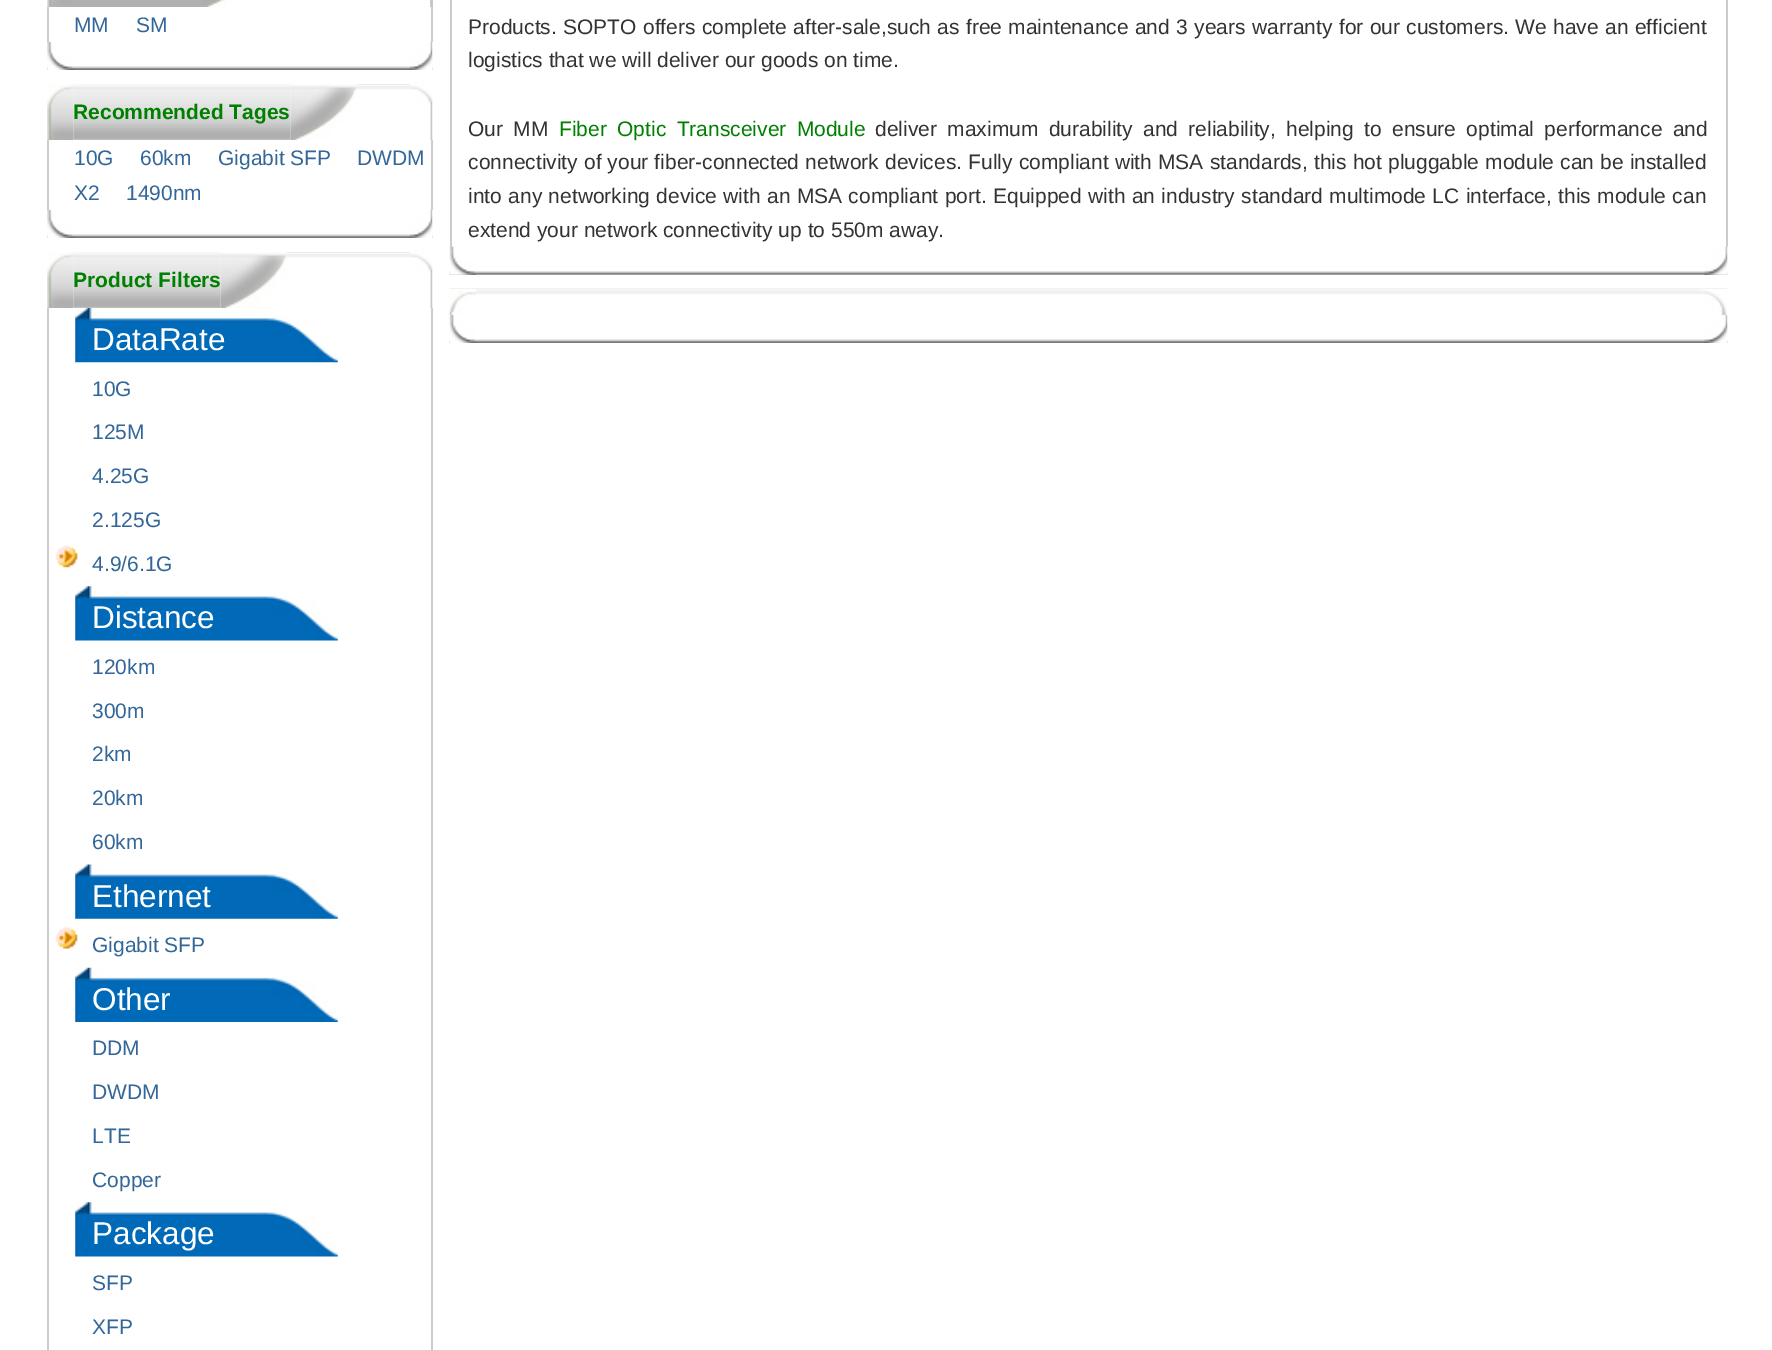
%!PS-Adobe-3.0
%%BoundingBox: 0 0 1772 1350
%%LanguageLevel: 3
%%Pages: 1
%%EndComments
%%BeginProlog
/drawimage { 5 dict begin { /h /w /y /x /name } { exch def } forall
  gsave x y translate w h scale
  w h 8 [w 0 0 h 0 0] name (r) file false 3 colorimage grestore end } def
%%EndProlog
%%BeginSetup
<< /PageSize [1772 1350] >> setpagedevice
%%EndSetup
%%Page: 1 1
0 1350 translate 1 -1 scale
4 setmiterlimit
1 setgray
0 0 1772 1350 rectfill
(images/1.raw) 47 0 26 7 drawimage
0.686 0.69 0.686 setrgbcolor
73 0 130 7 rectfill
(images/2.raw) 203 0 29 7 drawimage
0.78 setgray
430 0 3 7 rectfill
0.8 setgray
431 7 2 35 rectfill
47 7 2 35 rectfill
(images/3.raw) 47 66 386 4 drawimage
(images/4.raw) 47 42 27 28 drawimage
(images/5.raw) 409 42 24 28 drawimage
(images/6.raw) 47 84 386 6 drawimage
(images/7.raw) 47 84 27 56 drawimage
(images/8.raw) 73 84 218 56 drawimage
(images/9.raw) 290 84 67 56 drawimage
(images/10.raw) 409 84 24 56 drawimage
431 140 2 70 rectfill
47 140 2 70 rectfill
(images/3.raw) 47 234 386 4 drawimage
(images/4.raw) 47 210 27 28 drawimage
(images/5.raw) 409 210 24 28 drawimage
(images/6.raw) 47 252 386 6 drawimage
(images/7.raw) 47 252 27 56 drawimage
(images/11.raw) 73 252 148 56 drawimage
(images/12.raw) 220 252 67 56 drawimage
(images/10.raw) 409 252 24 56 drawimage
431 308 2 1042 rectfill
47 308 2 1042 rectfill
(images/13.raw) 75 308 263 55 drawimage
(images/14.raw) 55 545 23 23 drawimage
(images/15.raw) 75 586 263 55 drawimage
(images/16.raw) 75 864 263 55 drawimage
(images/17.raw) 55 927 23 22 drawimage
(images/18.raw) 75 967 263 55 drawimage
(images/15.raw) 75 1202 263 55 drawimage
(images/19.raw) 449 271 1279 4 drawimage
(images/21.raw) 1704 246 24 29 drawimage
1726 0 2 247 rectfill
(images/20.raw) 449 246 27 29 drawimage
450 0 2 247 rectfill
(images/22.raw) 449 288 1279 7 drawimage
(images/23.raw) 449 289 27 26 drawimage
(images/24.raw) 1701 289 26 26 drawimage
(images/25.raw) 449 339 1279 4 drawimage
(images/26.raw) 449 315 27 28 drawimage
(images/5.raw) 1704 315 24 28 drawimage
/LiberationSans-Regular [21 0 0 -21 0 0] selectfont
0.2 0.4 0.6 setrgbcolor
74 32 moveto (MM) show
136 32 moveto (SM) show
/LiberationSans-Bold [21 0 0 -21 0 0] selectfont
0 0.502 0 setrgbcolor
73 119 moveto (Recommended Tages) show
/LiberationSans-Regular [21 0 0 -21 0 0] selectfont
0.2 0.4 0.6 setrgbcolor
74 165 moveto (10G) show
140 165 moveto (60km) show
218 165 moveto (Gigabit SFP) show
357 165 moveto (DWDM) show
74 200 moveto (X2) show
126 200 moveto (1490nm) show
/LiberationSans-Bold [21 0 0 -21 0 0] selectfont
0 0.502 0 setrgbcolor
73 287 moveto (Product Filters) show
/LiberationSans-Regular [31.5 0 0 -31.5 0 0] selectfont
1 setgray
92 350 moveto (DataRate) show
/LiberationSans-Regular [21 0 0 -21 0 0] selectfont
0.2 0.4 0.6 setrgbcolor
92 396 moveto (10G) show
92 439 moveto (125M) show
92 483 moveto (4.25G) show
92 527 moveto (2.125G) show
92 571 moveto (4.9/6.1G) show
/LiberationSans-Regular [31.5 0 0 -31.5 0 0] selectfont
1 setgray
92 628 moveto (Distance) show
/LiberationSans-Regular [21 0 0 -21 0 0] selectfont
0.2 0.4 0.6 setrgbcolor
92 674 moveto (120km) show
92 718 moveto (300m) show
92 761 moveto (2km) show
92 805 moveto (20km) show
92 849 moveto (60km) show
/LiberationSans-Regular [31.5 0 0 -31.5 0 0] selectfont
1 setgray
92 907 moveto (Ethernet) show
/LiberationSans-Regular [21 0 0 -21 0 0] selectfont
0.2 0.4 0.6 setrgbcolor
92 952 moveto (Gigabit SFP) show
/LiberationSans-Regular [31.5 0 0 -31.5 0 0] selectfont
1 setgray
92 1010 moveto (Other) show
/LiberationSans-Regular [21 0 0 -21 0 0] selectfont
0.2 0.4 0.6 setrgbcolor
92 1055 moveto (DDM) show
92 1099 moveto (DWDM) show
92 1143 moveto (LTE) show
92 1187 moveto (Copper) show
/LiberationSans-Regular [31.5 0 0 -31.5 0 0] selectfont
1 setgray
92 1244 moveto (Package) show
/LiberationSans-Regular [21 0 0 -21 0 0] selectfont
0.2 0.4 0.6 setrgbcolor
92 1290 moveto (SFP) show
92 1334 moveto (XFP) show
0.2 setgray
468 34 moveto 0.5 0 32 (Products. SOPTO offers complete after-sale,such as free maintenance and 3 years warranty for our customers. We have an efficient) widthshow
468 67 moveto (logistics that we will deliver our goods on time.) show
468 136 moveto 4.5 0 32 (Our MM) widthshow
0 0.502 0 setrgbcolor
559 136 moveto 4.5 0 32 (Fiber Optic Transceiver Module) widthshow
0.2 setgray
875 136 moveto 4.5 0 32 (deliver maximum durability and reliability, helping to ensure optimal performance and) widthshow
468 169 moveto 0.3 0 32 (connectivity of your fiber-connected network devices. Fully compliant with MSA standards, this hot pluggable module can be installed) widthshow
468 203 moveto 0.5 0 32 (into any networking device with an MSA compliant port. Equipped with an industry standard multimode LC interface, this module can) widthshow
468 237 moveto (extend your network connectivity up to 550m away.) show
showpage
%%EOF
